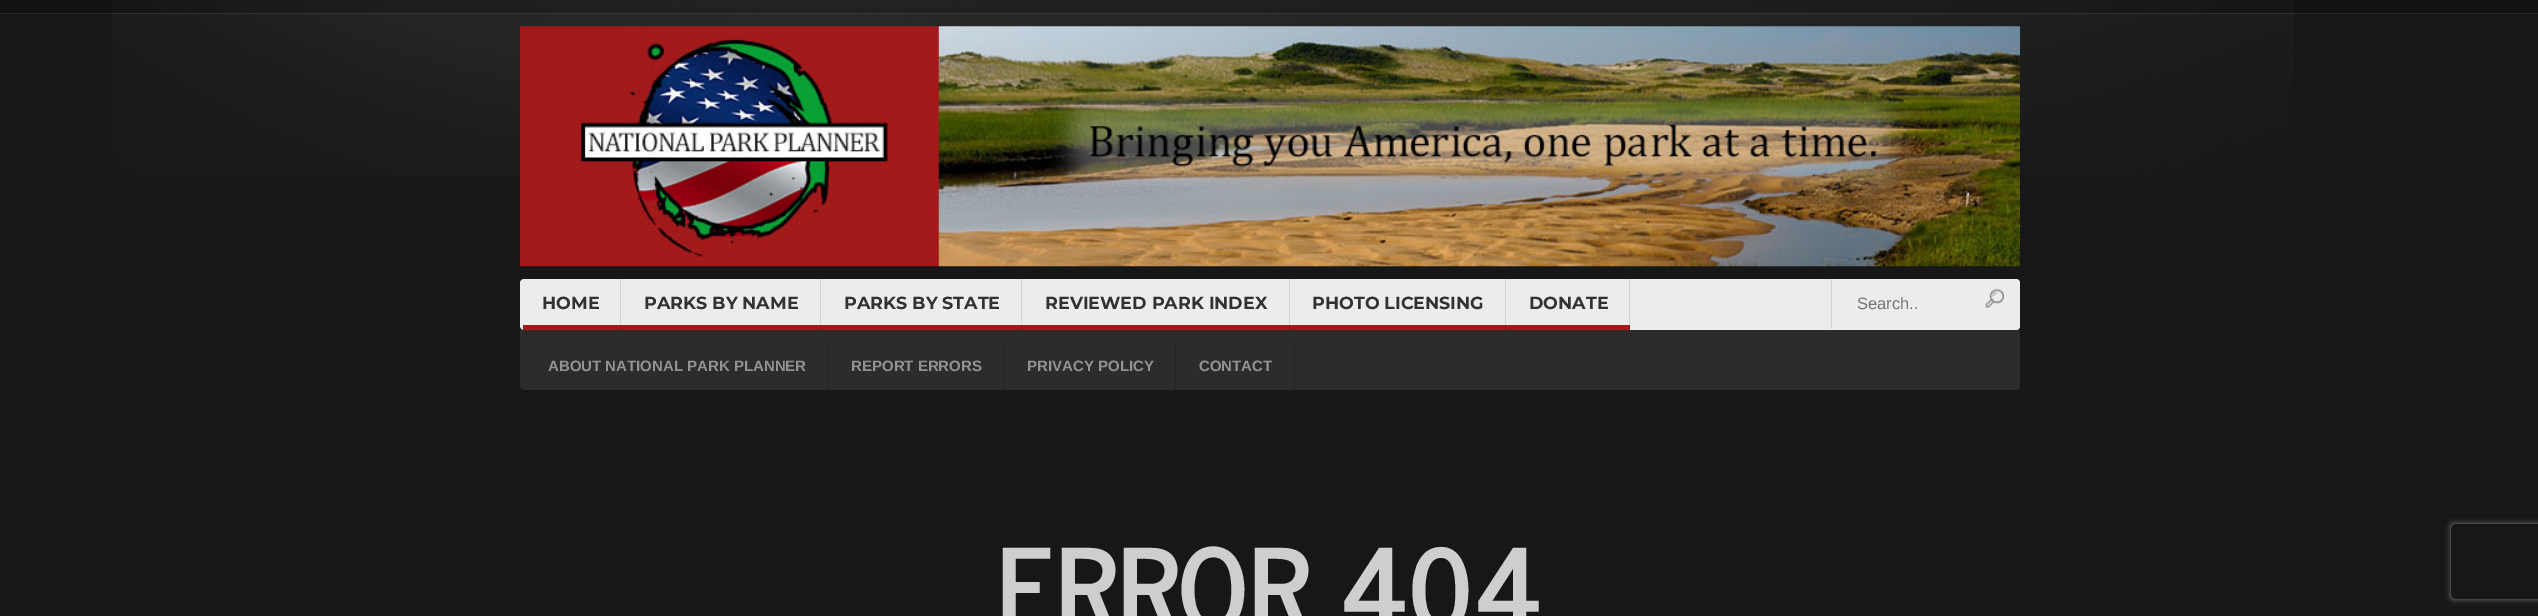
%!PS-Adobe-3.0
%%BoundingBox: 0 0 2538 616
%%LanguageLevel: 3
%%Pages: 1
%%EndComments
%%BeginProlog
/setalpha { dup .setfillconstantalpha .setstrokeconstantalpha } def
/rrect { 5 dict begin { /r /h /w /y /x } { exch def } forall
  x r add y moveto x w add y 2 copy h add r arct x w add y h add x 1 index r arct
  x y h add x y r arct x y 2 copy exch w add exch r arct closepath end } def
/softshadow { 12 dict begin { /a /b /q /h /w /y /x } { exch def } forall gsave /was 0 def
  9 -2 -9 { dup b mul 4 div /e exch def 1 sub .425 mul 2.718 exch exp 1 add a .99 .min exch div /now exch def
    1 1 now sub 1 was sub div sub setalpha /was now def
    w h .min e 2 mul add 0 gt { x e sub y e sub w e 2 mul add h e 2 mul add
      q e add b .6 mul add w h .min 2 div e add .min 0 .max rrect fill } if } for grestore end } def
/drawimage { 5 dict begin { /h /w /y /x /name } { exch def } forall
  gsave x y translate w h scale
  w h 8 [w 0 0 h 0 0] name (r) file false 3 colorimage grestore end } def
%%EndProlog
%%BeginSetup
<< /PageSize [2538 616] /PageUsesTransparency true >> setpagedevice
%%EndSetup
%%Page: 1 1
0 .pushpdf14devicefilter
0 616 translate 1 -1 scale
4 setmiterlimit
0.09 setgray
0 0 2538 616 rectfill
(images/1.raw) 112 0 2182 176 drawimage
0.2 setalpha
0 setgray
0 0 2538 14 rectfill
0.1 setalpha
1 setgray
0 13 2538 1 rectfill
1 setalpha
(images/2.raw) 520 26 1500 241 drawimage
0.173 setgray
newpath 520 318 moveto 2020 318 lineto 2020 386 lineto 2020 388 2018 390 2016 390 curveto 524 390 lineto 522 390 520 388 520 386 curveto closepath fill
0.925 setgray
520 279 1500 51 4 rrect fill
0.086 setgray
520 279 4 51 rectfill
0.925 setgray
newpath 524 279 moveto 621 279 lineto 621 330 lineto 524 330 lineto 522 330 520 328 520 326 curveto 520 283 lineto 520 281 522 279 524 279 curveto closepath fill
0.831 setgray
620 279 1 51 rectfill
0.639 0.102 0.102 setrgbcolor
523 325 98 5 rectfill
0.576 0.09 0.09 setrgbcolor
620 325 1 5 rectfill
0.831 setgray
820 279 1 51 rectfill
0.639 0.102 0.102 setrgbcolor
621 325 200 5 rectfill
0.576 0.09 0.09 setrgbcolor
820 325 1 5 rectfill
0.831 setgray
1021 279 1 51 rectfill
0.639 0.102 0.102 setrgbcolor
821 325 202 5 rectfill
0.576 0.09 0.09 setrgbcolor
1021 325 1 5 rectfill
0.831 setgray
1289 279 1 51 rectfill
0.639 0.102 0.102 setrgbcolor
1023 325 267 5 rectfill
0.576 0.09 0.09 setrgbcolor
1289 325 1 5 rectfill
0.831 setgray
1505 279 1 51 rectfill
0.639 0.102 0.102 setrgbcolor
1290 325 216 5 rectfill
0.576 0.09 0.09 setrgbcolor
1505 325 1 5 rectfill
0.831 setgray
1629 279 1 51 rectfill
0.639 0.102 0.102 setrgbcolor
1506 325 124 5 rectfill
0.576 0.09 0.09 setrgbcolor
1629 325 1 5 rectfill
0.831 setgray
1831 279 1 50 rectfill
(images/3.raw) 1985 288 19 20 drawimage
0.137 setgray
828 343 1 47 rectfill
1004 343 1 47 rectfill
1175 343 1 47 rectfill
1294 343 1 47 rectfill
gsave
newpath 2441 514 moveto 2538 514 lineto 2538 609 lineto 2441 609 lineto closepath 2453.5 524 moveto 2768.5 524 lineto 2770 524 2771 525 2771 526.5 curveto 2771 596.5 lineto 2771 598 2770 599 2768.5 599 curveto 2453.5 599 lineto 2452 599 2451 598 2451 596.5 curveto 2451 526.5 lineto 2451 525 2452 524 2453.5 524 curveto closepath eoclip newpath
0.502 setgray
2451 524 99 75 2.5 3 1 softshadow
grestore
/Montserrat-Bold [17.5 0 0 -17.5 0 0] selectfont
0.196 setgray
542 309 moveto (HOME) show
644 309 moveto (PARKS BY NAME) show
844 309 moveto (PARKS BY STATE) show
1045 309 moveto (REVIEWED PARK INDEX) show
1312 309 moveto (PHOTO LICENSING) show
1529 309 moveto (DONATE) show
/LiberationSans-Regular [16.5 0 0 -16.5 0 0] selectfont
0.459 setgray
1857 309 moveto (Search..) show
/LiberationSans-Bold [15 0 0 -15 0 0] selectfont
0.576 setgray
548 371 moveto (ABOUT NATIONAL PARK PLANNER) show
851 371 moveto (REPORT ERRORS) show
1027 371 moveto (PRIVACY POLICY) show
1199 371 moveto (CONTACT) show
/NewsCycle-Bold [112.5 0 0 -112.5 0 0] selectfont
0.808 setgray
996 631 moveto (ERROR 404) show
.poppdf14devicefilter showpage
%%EOF
